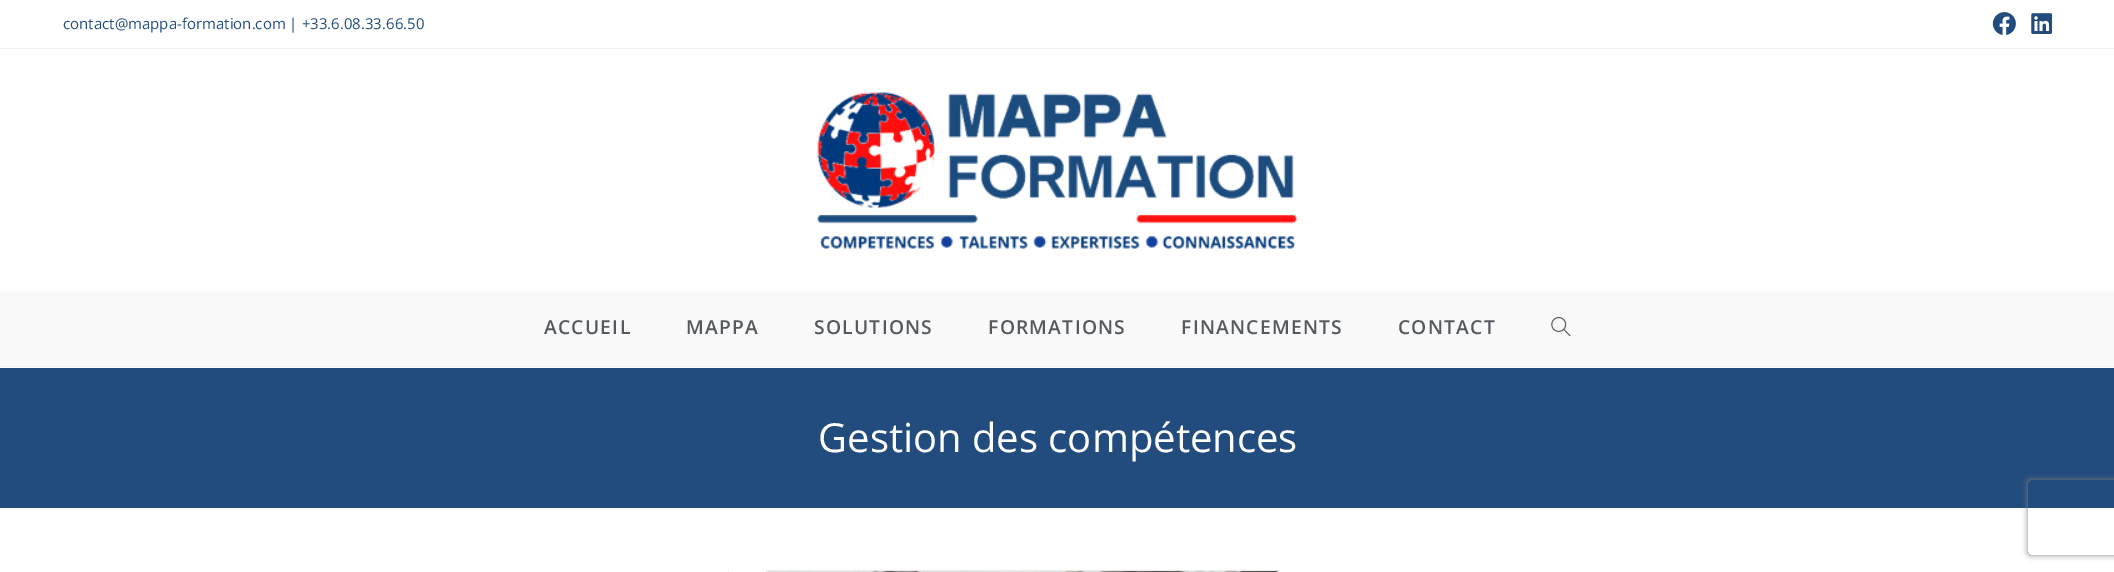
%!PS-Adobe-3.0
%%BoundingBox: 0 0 2114 572
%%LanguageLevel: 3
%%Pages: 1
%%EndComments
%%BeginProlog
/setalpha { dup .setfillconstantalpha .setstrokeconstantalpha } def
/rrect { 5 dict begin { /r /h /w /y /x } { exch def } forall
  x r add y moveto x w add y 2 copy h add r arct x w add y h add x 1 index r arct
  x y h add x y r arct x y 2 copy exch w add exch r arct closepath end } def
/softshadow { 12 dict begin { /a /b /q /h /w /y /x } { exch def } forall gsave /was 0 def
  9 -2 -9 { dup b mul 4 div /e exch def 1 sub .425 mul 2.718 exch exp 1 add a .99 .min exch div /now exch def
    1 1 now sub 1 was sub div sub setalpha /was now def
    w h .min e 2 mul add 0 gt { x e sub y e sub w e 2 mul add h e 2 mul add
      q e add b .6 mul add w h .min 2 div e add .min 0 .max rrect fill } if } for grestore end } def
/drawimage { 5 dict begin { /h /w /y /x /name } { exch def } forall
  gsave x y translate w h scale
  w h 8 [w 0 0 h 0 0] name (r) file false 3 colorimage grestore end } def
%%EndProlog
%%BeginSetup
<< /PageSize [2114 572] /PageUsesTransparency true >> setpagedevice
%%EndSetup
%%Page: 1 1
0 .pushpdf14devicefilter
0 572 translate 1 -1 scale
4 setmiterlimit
1 setgray
0 0 2114 572 rectfill
0.945 setgray
0 48 2114 1 rectfill
(images/1.raw) 1992 12 24 23 drawimage
(images/2.raw) 2031 13 22 21 drawimage
0 366 2114 1 rectfill
(images/3.raw) 817 92 481 157 drawimage
0.976 setgray
0 291 2114 75 rectfill
(images/4.raw) 1551 317 20 20 drawimage
0.133 0.298 0.49 setrgbcolor
0 368 2114 140 rectfill
0.945 setgray
728 570 1 2 rectfill
0.914 setgray
766.5 570.5 512 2 rectstroke
(images/5.raw) 767 571 511 1 drawimage
gsave
newpath 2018 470 moveto 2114 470 lineto 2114 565 lineto 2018 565 lineto closepath 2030.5 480 moveto 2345.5 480 lineto 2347 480 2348 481 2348 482.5 curveto 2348 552.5 lineto 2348 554 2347 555 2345.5 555 curveto 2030.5 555 lineto 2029 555 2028 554 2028 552.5 curveto 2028 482.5 lineto 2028 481 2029 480 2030.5 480 curveto closepath eoclip newpath
0.502 setgray
2028 480 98 75 2.5 3 1 softshadow
grestore
/OpenSans-Regular [15 0 0 -15 0 0] selectfont
0.133 0.298 0.49 setrgbcolor
63 29 moveto (contact@mappa-formation.com | +33.6.08.33.66.50) show
/OpenSans-SemiBold [19.25 0 0 -19.25 0 0] selectfont
0.329 0.349 0.373 setrgbcolor
544 334 moveto 1.25 0 (ACCUEIL) ashow
686 334 moveto 1.25 0 (MAPPA) ashow
814 334 moveto 1.25 0 (SOLUTIONS) ashow
988 334 moveto 1.25 0 (FORMATIONS) ashow
1181 334 moveto 1.25 0 (FINANCEMENTS) ashow
1398 334 moveto 1.25 0 (CONTACT) ashow
/OpenSans-Regular [40 0 0 -40 0 0] selectfont
1 setgray
818 452 moveto (Gestion des compétences) show
.poppdf14devicefilter showpage
%%EOF
